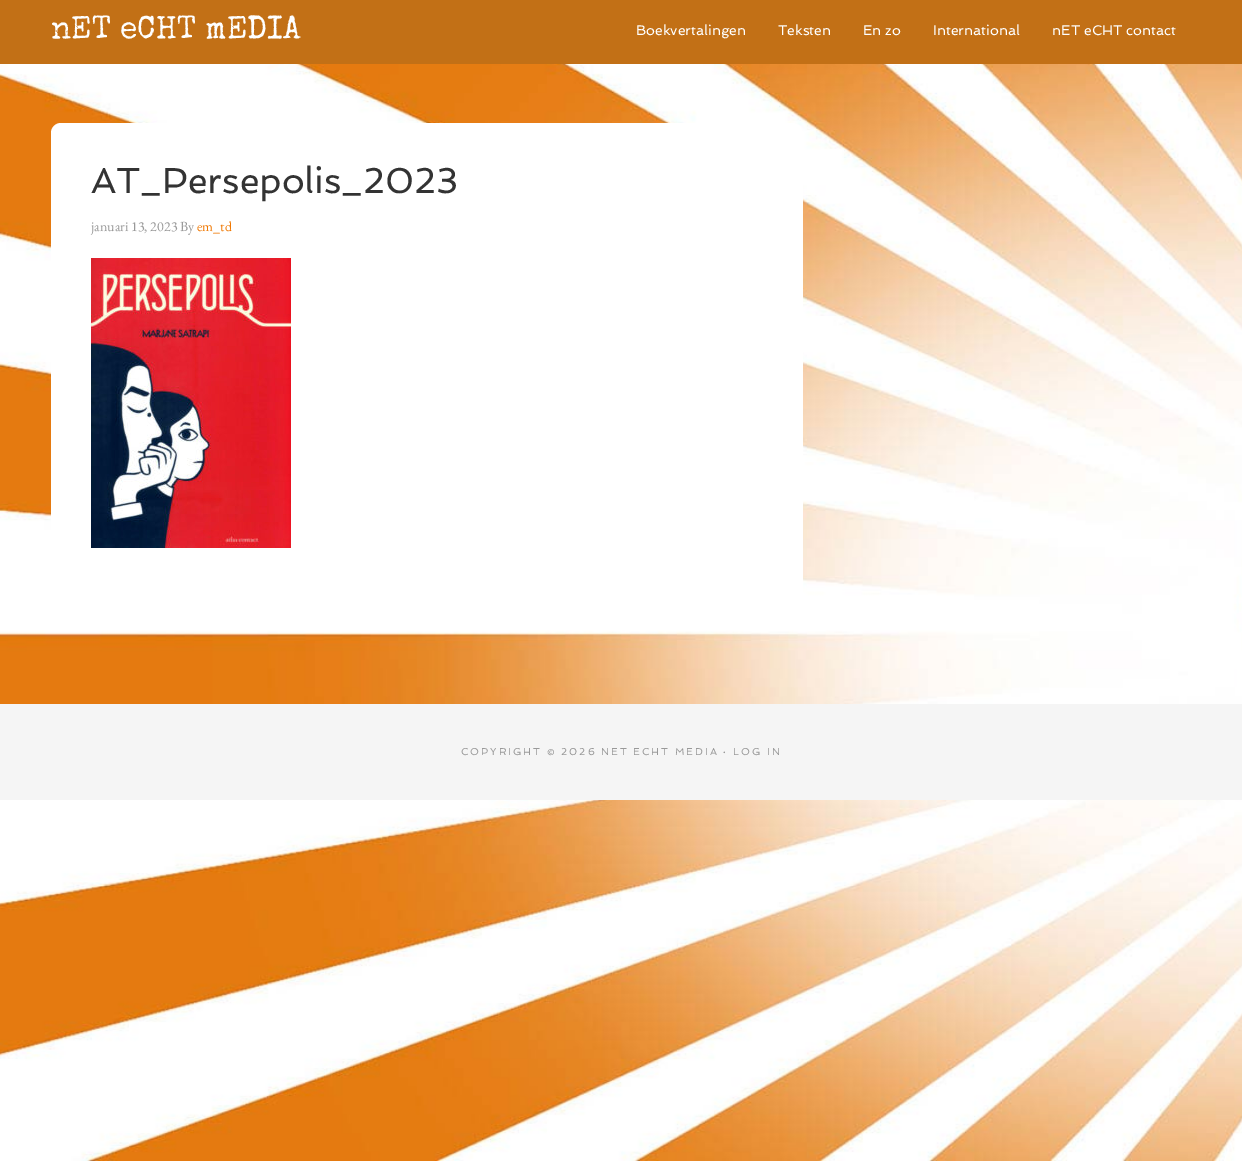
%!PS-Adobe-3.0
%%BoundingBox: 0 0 1242 1161
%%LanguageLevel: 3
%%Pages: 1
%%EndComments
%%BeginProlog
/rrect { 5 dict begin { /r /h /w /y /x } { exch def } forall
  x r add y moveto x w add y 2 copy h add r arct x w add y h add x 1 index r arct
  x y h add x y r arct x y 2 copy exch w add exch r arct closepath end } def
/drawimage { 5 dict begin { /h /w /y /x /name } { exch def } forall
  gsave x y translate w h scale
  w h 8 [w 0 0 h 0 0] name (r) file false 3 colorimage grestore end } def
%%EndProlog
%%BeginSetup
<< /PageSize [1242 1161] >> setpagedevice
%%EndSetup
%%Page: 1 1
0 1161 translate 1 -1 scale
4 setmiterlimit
1 setgray
0 0 1242 1161 rectfill
0.761 0.439 0.086 setrgbcolor
0 0 1242 64 rectfill
(images/1.raw) 0 64 1242 1097 drawimage
1 setgray
51 123 752 479 10 rrect fill
(images/2.raw) 91 258 200 290 drawimage
0.961 setgray
0 704 1242 96 rectfill
/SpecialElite-Regular [32 0 0 -32 0 0] selectfont
1 setgray
51 38 moveto (nET eCHT mEDIA) show
/Spinnaker-Regular [14 0 0 -14 0 0] selectfont
636 35 moveto (Boekvertalingen) show
778 35 moveto (Teksten) show
863 35 moveto (En zo) show
933 35 moveto (International) show
1052 35 moveto (nET eCHT contact) show
/Spinnaker-Regular [36 0 0 -36 0 0] selectfont
0.2 setgray
91 193 moveto (AT_Persepolis_2023) show
/EBGaramond-Regular [14 0 0 -14 0 0] selectfont
0.6 setgray
91 231 moveto (januari 13, 2023 By) show
0.941 0.471 0.008 setrgbcolor
197 231 moveto (em_td) show
/Spinnaker-Regular [10 0 0 -10 0 0] selectfont
0.6 setgray
461 755 moveto 2 0 (COPYRIGHT © 2026 NET ECHT MEDIA · LOG IN) ashow
showpage
%%EOF
